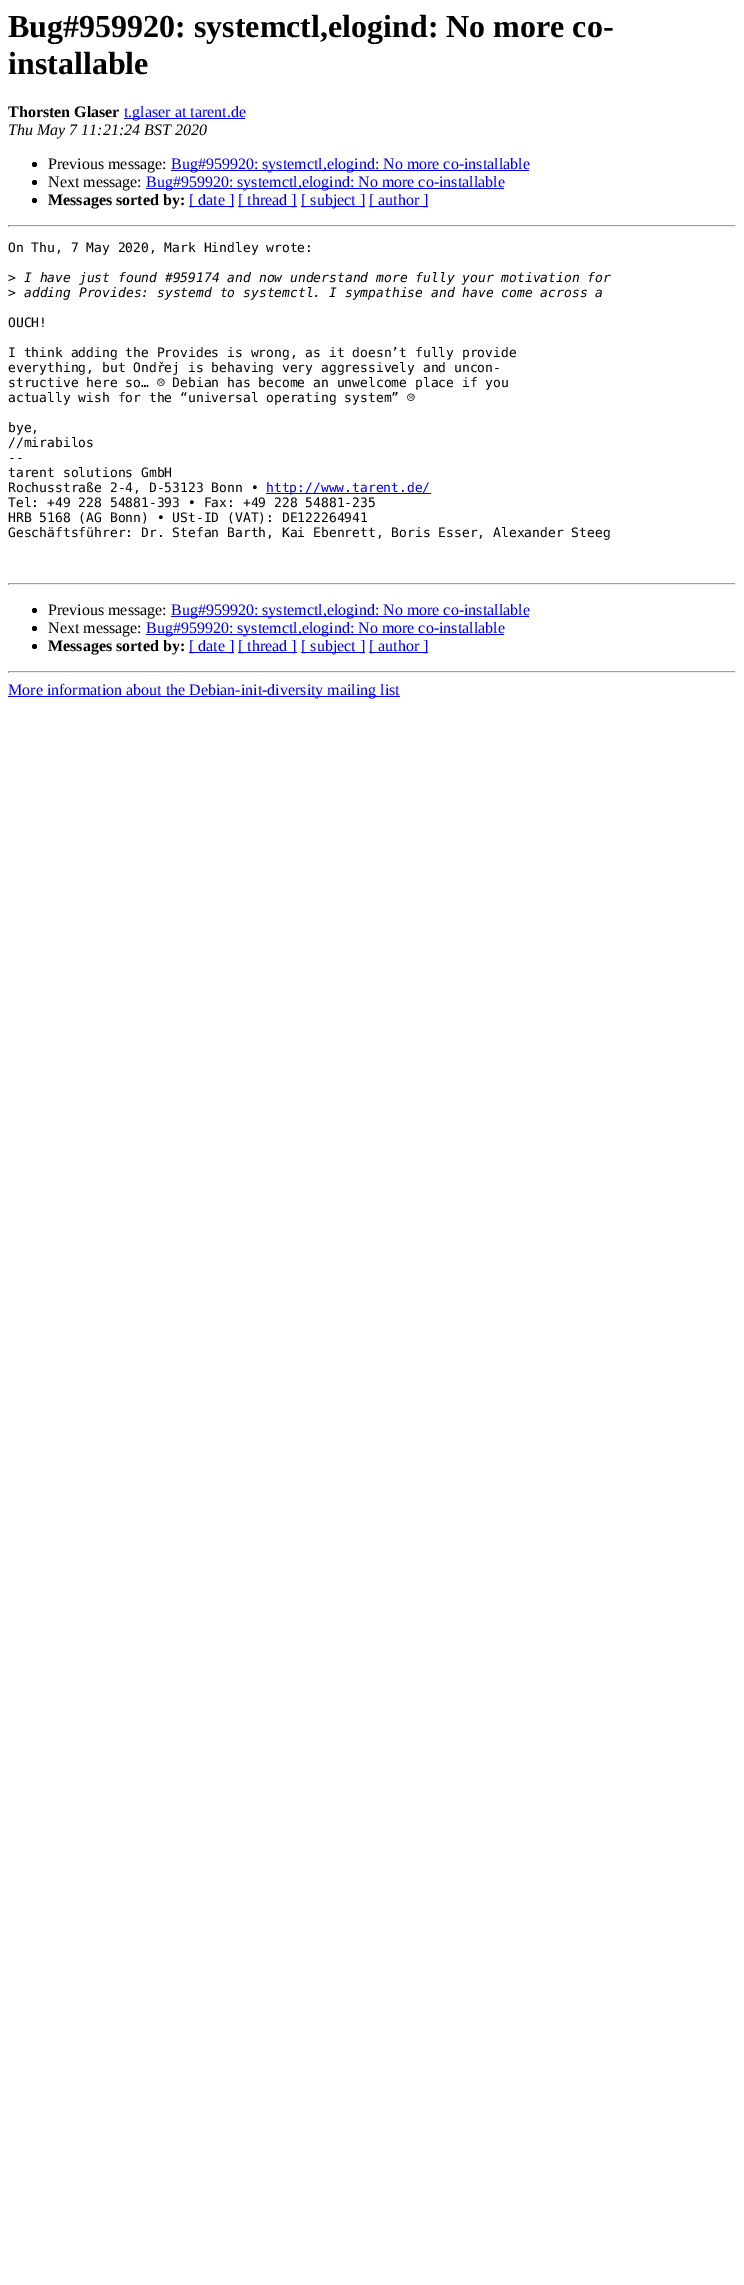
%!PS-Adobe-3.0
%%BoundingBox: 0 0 744 2285
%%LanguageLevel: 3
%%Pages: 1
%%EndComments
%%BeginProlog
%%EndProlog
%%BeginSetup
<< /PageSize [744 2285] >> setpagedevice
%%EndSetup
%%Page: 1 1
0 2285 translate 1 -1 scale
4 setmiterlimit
1 setgray
0 0 744 2285 rectfill
0 0 0.933 setrgbcolor
124 118 121 1 rectfill
0 setgray
newpath 34.5 164.5 2.5 0 360 arc closepath fill
0 0 0.933 setrgbcolor
171 170 358 1 rectfill
0 setgray
newpath 34.5 182.5 2.5 0 360 arc closepath fill
0 0 0.933 setrgbcolor
146 188 358 1 rectfill
0 setgray
newpath 34.5 200.5 2.5 0 360 arc closepath fill
0 0 0.933 setrgbcolor
189 206 45 1 rectfill
238 206 59 1 rectfill
301 206 64 1 rectfill
369 206 59 1 rectfill
0.624 setgray
8 225 728 1 rectfill
0.933 setgray
735 225 1 2 rectfill
8 226 728 1 rectfill
0.624 setgray
8 225 1 2 rectfill
0 0 0.933 setrgbcolor
266 493 165 1 rectfill
0.624 setgray
8 583 728 1 rectfill
0.933 setgray
735 583 1 2 rectfill
8 584 728 1 rectfill
0.624 setgray
8 583 1 2 rectfill
0 setgray
newpath 34.5 610.5 2.5 0 360 arc closepath fill
0 0 0.933 setrgbcolor
171 616 358 1 rectfill
0 setgray
newpath 34.5 628.5 2.5 0 360 arc closepath fill
0 0 0.933 setrgbcolor
146 634 358 1 rectfill
0 setgray
newpath 34.5 646.5 2.5 0 360 arc closepath fill
0 0 0.933 setrgbcolor
189 652 45 1 rectfill
238 652 59 1 rectfill
301 652 64 1 rectfill
369 652 59 1 rectfill
0.624 setgray
8 671 728 1 rectfill
0.933 setgray
735 671 1 2 rectfill
8 672 728 1 rectfill
0.624 setgray
8 671 1 2 rectfill
0 0 0.933 setrgbcolor
8 696 392 1 rectfill
/LiberationSerif-Bold [32 0 0 -32 0 0] selectfont
0 setgray
8 37 moveto (Bug#959920: systemctl,elogind: No more co-) show
8 74 moveto (installable) show
/LiberationSerif-Bold [16 0 0 -16 0 0] selectfont
8 117 moveto (Thorsten Glaser) show
/LiberationSerif-Regular [16 0 0 -16 0 0] selectfont
0 0 0.933 setrgbcolor
124 117 moveto (t.glaser at tarent.de) show
/LiberationSerif-Italic [16 0 0 -16 0 0] selectfont
0 setgray
8 135 moveto (Thu May 7 11:21:24 BST 2020) show
/LiberationSerif-Regular [16 0 0 -16 0 0] selectfont
48 169 moveto (Previous message:) show
0 0 0.933 setrgbcolor
171 169 moveto (Bug#959920: systemctl,elogind: No more co-installable) show
0 setgray
48 187 moveto (Next message:) show
0 0 0.933 setrgbcolor
146 187 moveto (Bug#959920: systemctl,elogind: No more co-installable) show
/LiberationSerif-Bold [16 0 0 -16 0 0] selectfont
0 setgray
48 205 moveto (Messages sorted by:) show
/LiberationSerif-Regular [16 0 0 -16 0 0] selectfont
0 0 0.933 setrgbcolor
189 205 moveto ([ date ]) show
238 205 moveto ([ thread ]) show
301 205 moveto ([ subject ]) show
369 205 moveto ([ author ]) show
/DejaVuSansMono-Regular [13 0 0 -13 0 0] selectfont
0 setgray
8 252 moveto (On Thu, 7 May 2020, Mark Hindley wrote:) show
8 282 moveto (>) show
/DejaVuSansMono-Italic [13 0 0 -13 0 0] selectfont
24 282 moveto (I have just found #959174 and now understand more fully your motivation for) show
/DejaVuSansMono-Regular [13 0 0 -13 0 0] selectfont
8 297 moveto (>) show
/DejaVuSansMono-Italic [13 0 0 -13 0 0] selectfont
24 297 moveto (adding Provides: systemd to systemctl. I sympathise and have come across a) show
/DejaVuSansMono-Regular [13 0 0 -13 0 0] selectfont
8 327 moveto (OUCH!) show
8 357 moveto (I think adding the Provides is wrong, as it doesn’t fully provide) show
8 372 moveto (everything, but Ondřej is behaving very aggressively and uncon‐) show
8 387 moveto (structive here so… ☹ Debian has become an unwelcome place if you) show
8 402 moveto (actually wish for the “universal operating system” ☹) show
8 432 moveto (bye,) show
8 447 moveto (//mirabilos) show
8 462 moveto (--) show
8 477 moveto (tarent solutions GmbH) show
8 492 moveto (Rochusstraße 2-4, D-53123 Bonn •) show
0 0 0.933 setrgbcolor
266 492 moveto (http://www.tarent.de/) show
0 setgray
8 507 moveto (Tel: +49 228 54881-393 • Fax: +49 228 54881-235) show
8 522 moveto (HRB 5168 \(AG Bonn\) • USt-ID \(VAT\): DE122264941) show
8 537 moveto (Geschäftsführer: Dr. Stefan Barth, Kai Ebenrett, Boris Esser, Alexander Steeg) show
/LiberationSerif-Regular [16 0 0 -16 0 0] selectfont
48 615 moveto (Previous message:) show
0 0 0.933 setrgbcolor
171 615 moveto (Bug#959920: systemctl,elogind: No more co-installable) show
0 setgray
48 633 moveto (Next message:) show
0 0 0.933 setrgbcolor
146 633 moveto (Bug#959920: systemctl,elogind: No more co-installable) show
/LiberationSerif-Bold [16 0 0 -16 0 0] selectfont
0 setgray
48 651 moveto (Messages sorted by:) show
/LiberationSerif-Regular [16 0 0 -16 0 0] selectfont
0 0 0.933 setrgbcolor
189 651 moveto ([ date ]) show
238 651 moveto ([ thread ]) show
301 651 moveto ([ subject ]) show
369 651 moveto ([ author ]) show
8 695 moveto (More information about the Debian-init-diversity mailing list) show
showpage
%%EOF
